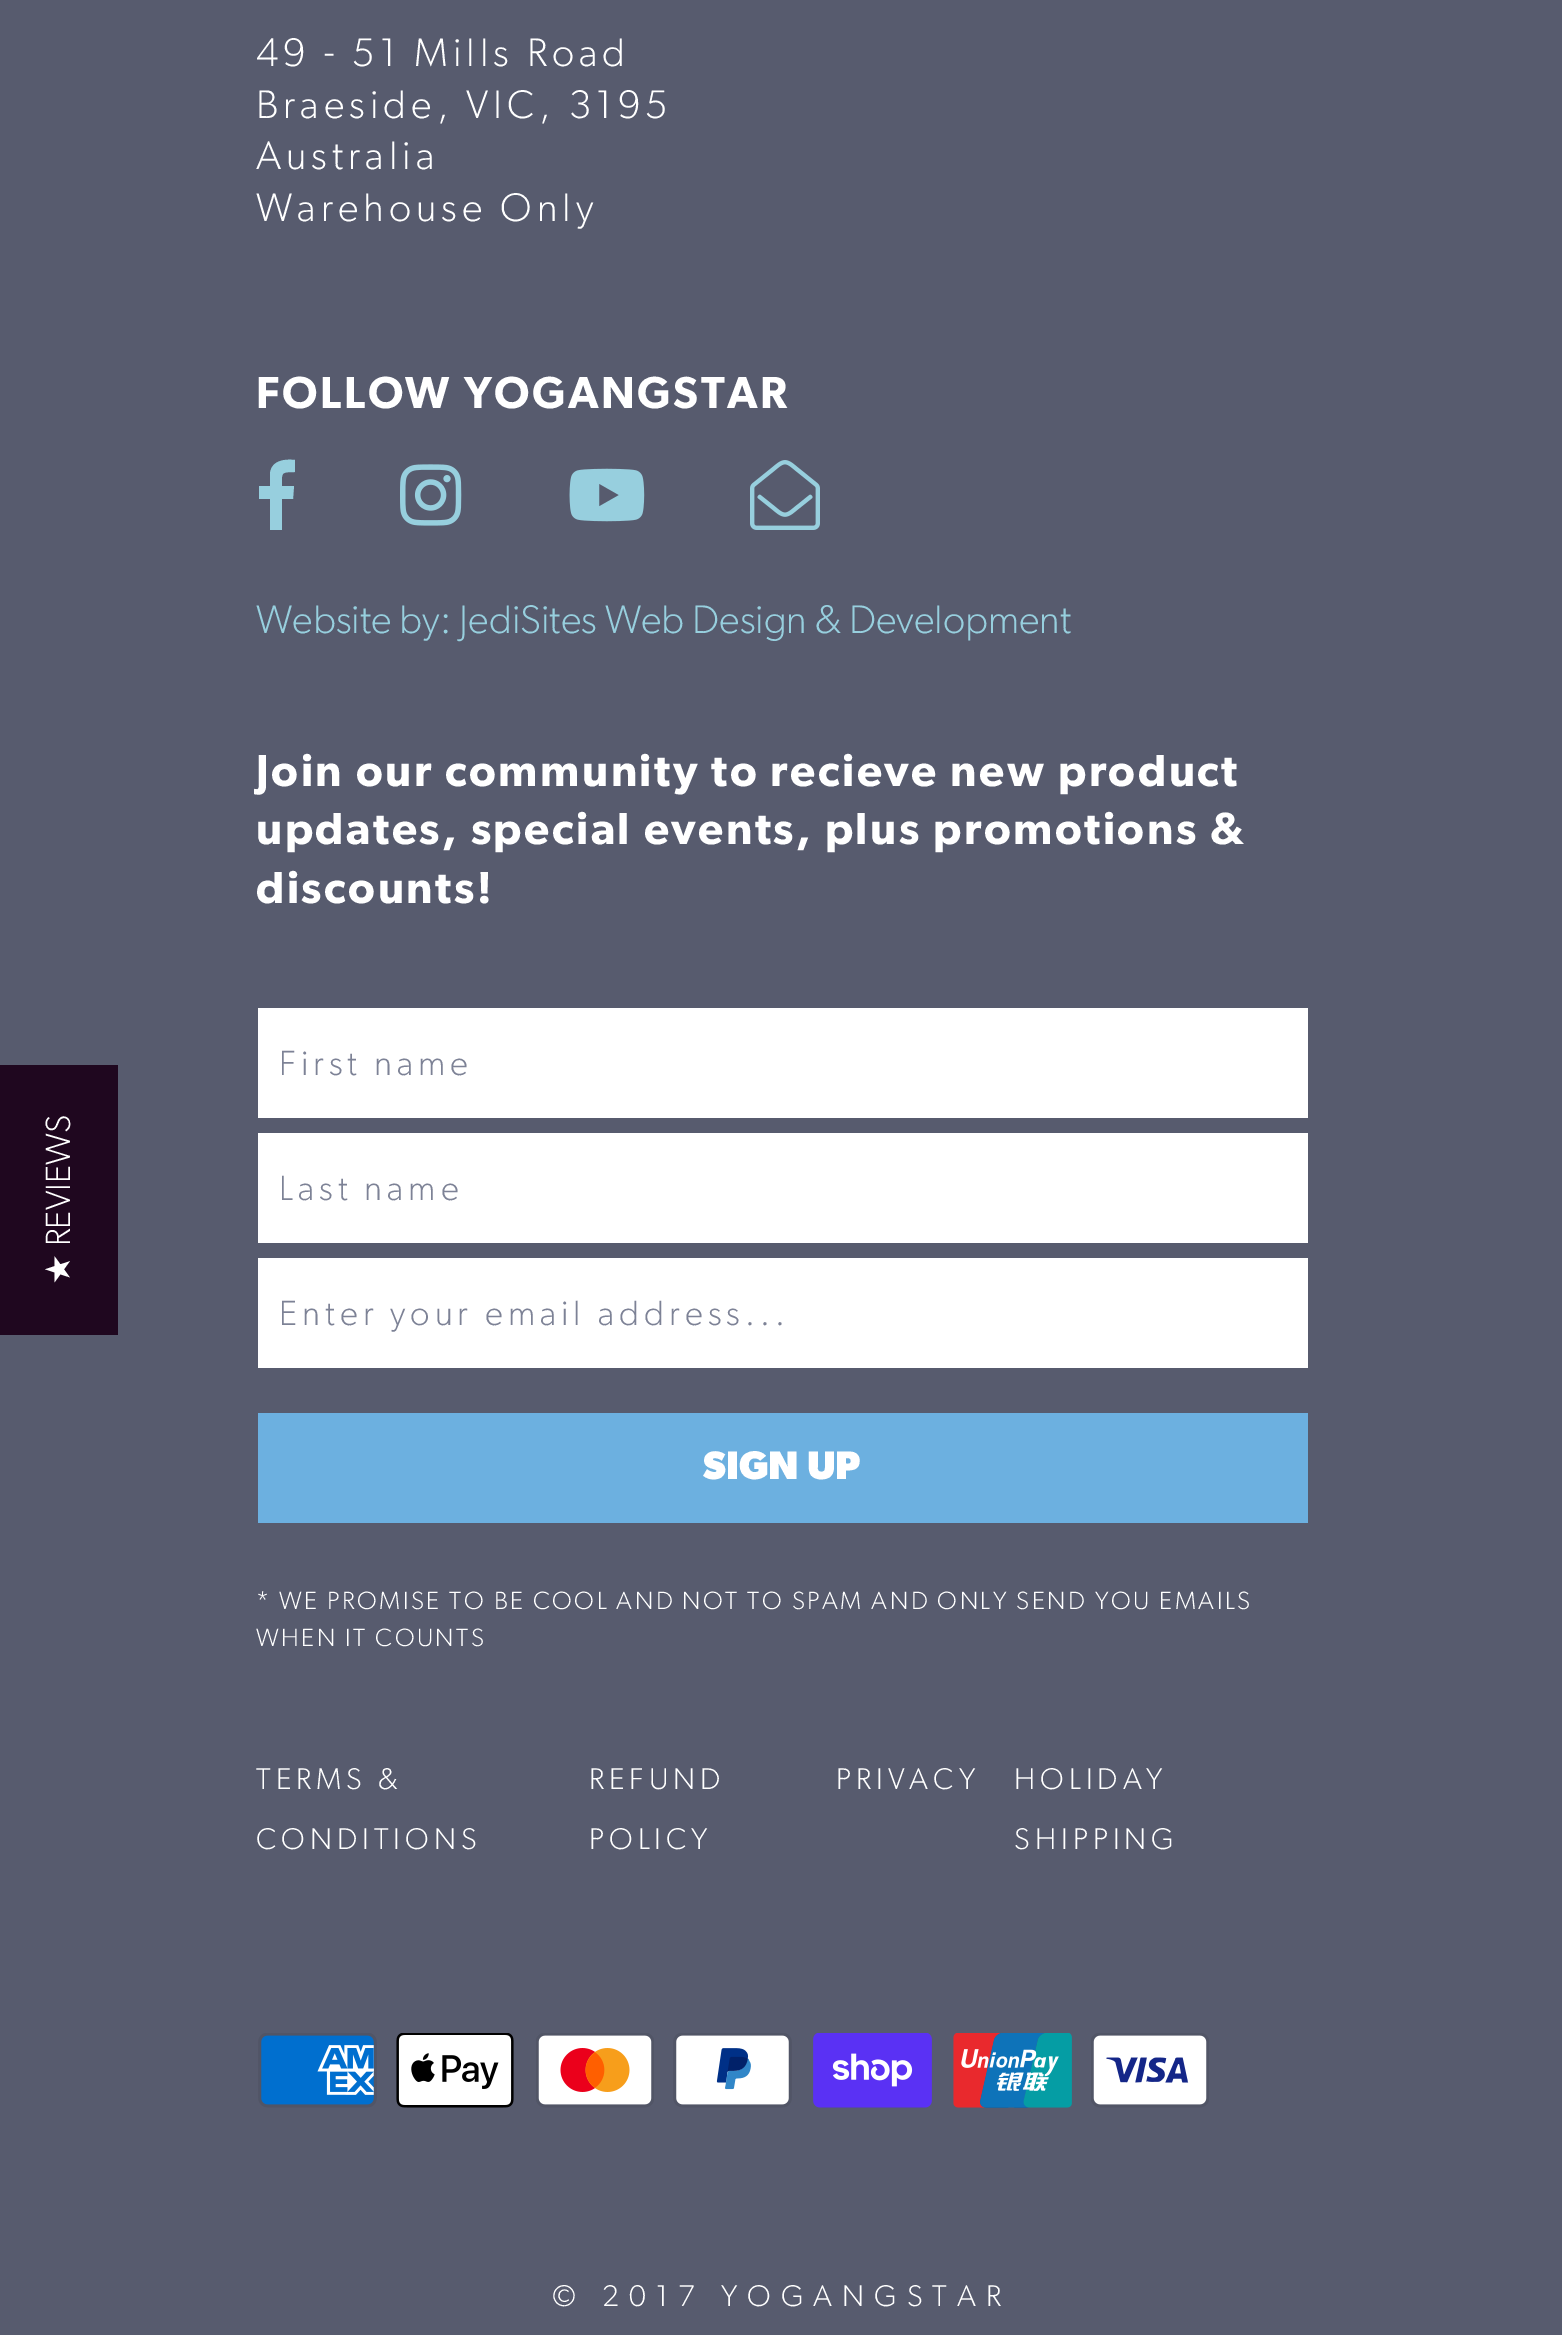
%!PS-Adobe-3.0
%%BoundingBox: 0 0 1562 2335
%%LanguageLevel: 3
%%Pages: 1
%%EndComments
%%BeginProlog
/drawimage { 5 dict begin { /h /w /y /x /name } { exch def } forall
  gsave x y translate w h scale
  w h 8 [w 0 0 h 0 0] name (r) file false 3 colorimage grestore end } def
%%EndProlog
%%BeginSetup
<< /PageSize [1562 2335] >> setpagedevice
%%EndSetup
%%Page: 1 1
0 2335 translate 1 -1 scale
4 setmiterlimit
0.341 0.357 0.431 setrgbcolor
0 0 1562 2335 rectfill
0.122 0.027 0.122 setrgbcolor
0 1065 118 270 rectfill
0.592 0.812 0.871 setrgbcolor
newpath 270 530 moveto 270 499 lineto 259 499 lineto 259 486 lineto 270 486 lineto 270 473 lineto 272 460 285 459 295 460 curveto 295 472 lineto 280 472 282 473 282 486 curveto 294 486 lineto 293 499 lineto 282 499 lineto 282 530 lineto fill
(images/1.raw) 400 464 62 62 drawimage
(images/2.raw) 569 468 76 54 drawimage
(images/3.raw) 750 460 70 70 drawimage
1 setgray
258 1008 1050 110 rectfill
258 1133 1050 110 rectfill
258 1258 1050 110 rectfill
0.424 0.69 0.878 setrgbcolor
258 1413 1050 110 rectfill
(images/4.raw) 258 2033 119 75 drawimage
(images/5.raw) 396 2033 118 75 drawimage
(images/6.raw) 536 2033 118 75 drawimage
(images/7.raw) 673 2033 119 75 drawimage
(images/8.raw) 813 2033 119 75 drawimage
(images/9.raw) 953 2033 119 75 drawimage
(images/10.raw) 1091 2033 118 75 drawimage
/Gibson-Light [35 0 0 -35 0 0] selectfont
1 setgray
gsave 70 1246 translate -90 rotate 0 0 moveto (REVIEWS) show grestore
/DejaVuSans-Regular [35 0 0 -35 0 0] selectfont
gsave 70 1285 translate -90 rotate 0 0 moveto (★) show grestore
/Gibson-Light [40 0 0 -40 0 0] selectfont
256 66 moveto 5 0 (49 - 51 Mills Road) ashow
256 118 moveto 5 0 (Braeside, VIC, 3195) ashow
256 169 moveto 5 0 (Australia) ashow
256 221 moveto 5 0 (Warehouse Only) ashow
/Gibson-SemiBold [45 0 0 -45 0 0] selectfont
256 408 moveto 2.5 0 (FOLLOW YOGANGSTAR) ashow
/Gibson-Light [40 0 0 -40 0 0] selectfont
0.592 0.812 0.871 setrgbcolor
256 633 moveto (Website by: JediSites Web Design & Development) show
/Gibson-SemiBold [45 0 0 -45 0 0] selectfont
1 setgray
256 786 moveto 2.5 0 (Join our community to recieve new product) ashow
256 844 moveto 2.5 0 (updates, special events, plus promotions &) ashow
256 903 moveto 2.5 0 (discounts!) ashow
/Gibson-Light [35 0 0 -35 0 0] selectfont
0.49 0.51 0.588 setrgbcolor
279 1075 moveto 5 0 (First name) ashow
279 1200 moveto 5 0 (Last name) ashow
279 1325 moveto 5 0 (Enter your email address...) ashow
/Gibson-Bold [40 0 0 -40 0 0] selectfont
1 setgray
703 1479 moveto (SIGN UP) show
/Gibson-Light [25 0 0 -25 0 0] selectfont
256 1609 moveto 2.5 0 (* WE PROMISE TO BE COOL AND NOT TO SPAM AND ONLY SEND YOU EMAILS) ashow
256 1646 moveto 2.5 0 (WHEN IT COUNTS) ashow
/Gibson-Light [30 0 0 -30 0 0] selectfont
256 1789 moveto 5 0 (TERMS &) ashow
256 1849 moveto 5 0 (CONDITIONS) ashow
589 1789 moveto 5 0 (REFUND) ashow
589 1849 moveto 5 0 (POLICY) ashow
836 1789 moveto 5 0 (PRIVACY) ashow
1014 1789 moveto 5 0 (HOLIDAY) ashow
1014 1849 moveto 5 0 (SHIPPING) ashow
552 2306 moveto 10 0 (© 2017 YOGANGSTAR) ashow
showpage
%%EOF
